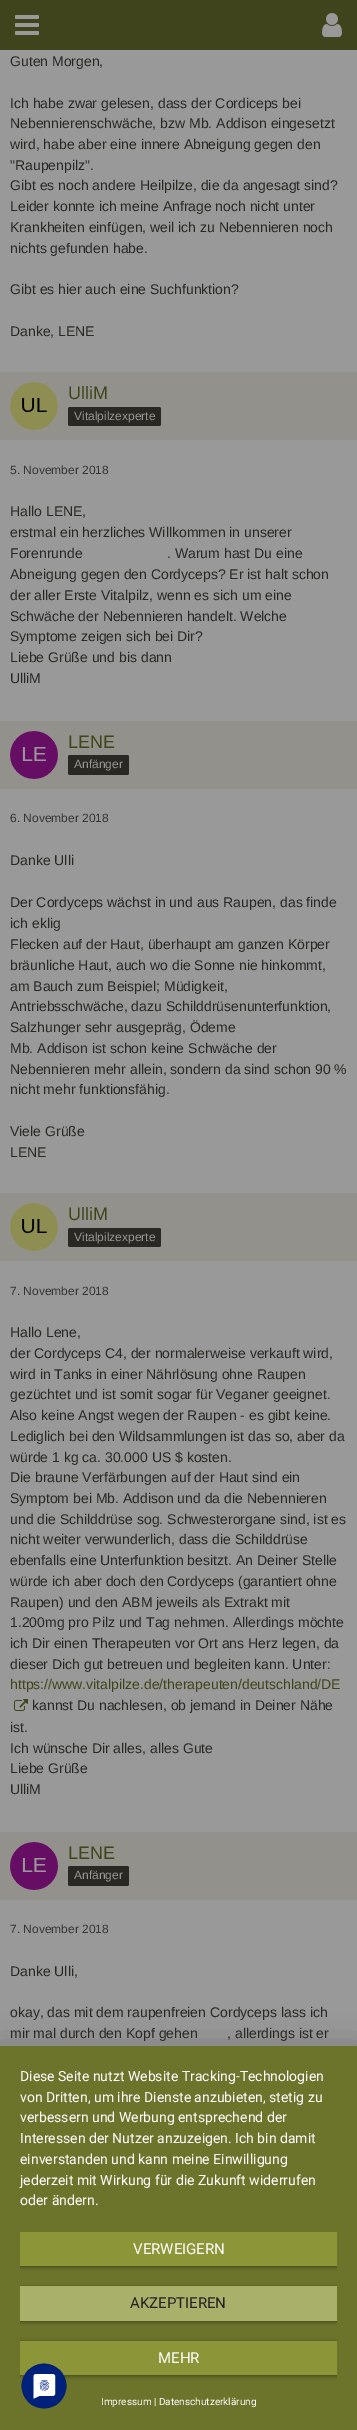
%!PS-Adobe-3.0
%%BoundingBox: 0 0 357 2430
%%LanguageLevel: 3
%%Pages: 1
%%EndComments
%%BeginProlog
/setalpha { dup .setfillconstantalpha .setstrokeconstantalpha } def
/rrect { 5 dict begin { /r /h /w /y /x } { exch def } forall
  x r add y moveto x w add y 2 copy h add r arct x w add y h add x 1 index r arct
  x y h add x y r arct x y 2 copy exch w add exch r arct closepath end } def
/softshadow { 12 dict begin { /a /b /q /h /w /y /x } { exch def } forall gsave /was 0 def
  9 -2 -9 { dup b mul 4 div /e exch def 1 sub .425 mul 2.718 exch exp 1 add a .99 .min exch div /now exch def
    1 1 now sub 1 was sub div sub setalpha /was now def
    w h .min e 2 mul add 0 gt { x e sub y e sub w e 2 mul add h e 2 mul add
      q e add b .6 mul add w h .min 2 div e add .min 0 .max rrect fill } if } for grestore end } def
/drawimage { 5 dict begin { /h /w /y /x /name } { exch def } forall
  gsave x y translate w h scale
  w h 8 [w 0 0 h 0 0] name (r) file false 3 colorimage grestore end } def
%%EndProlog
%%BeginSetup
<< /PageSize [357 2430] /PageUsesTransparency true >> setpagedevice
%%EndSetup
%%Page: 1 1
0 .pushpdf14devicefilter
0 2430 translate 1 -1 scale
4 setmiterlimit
0.6 setgray
0 0 357 2430 rectfill
0.251 0.267 0.11 setrgbcolor
0 0 357 50 rectfill
(images/1.raw) 15 15 24 20 drawimage
(images/2.raw) 322 13 20 24 drawimage
0.576 0.569 0.545 setrgbcolor
0 372 357 68 rectfill
(images/3.raw) 10 382 48 48 drawimage
0.161 0.157 0.137 setrgbcolor
68 407 93 19 2 rrect fill
0.576 0.569 0.545 setrgbcolor
0 721 357 68 rectfill
(images/4.raw) 10 731 48 48 drawimage
0.161 0.157 0.137 setrgbcolor
68 755 61 20 2 rrect fill
0.576 0.569 0.545 setrgbcolor
0 1193 357 68 rectfill
(images/3.raw) 10 1203 48 48 drawimage
0.161 0.157 0.137 setrgbcolor
68 1228 93 19 2 rrect fill
(images/5.raw) 14 1699 14 12 drawimage
0.576 0.569 0.545 setrgbcolor
0 1832 357 68 rectfill
(images/6.raw) 10 1842 48 48 drawimage
0.161 0.157 0.137 setrgbcolor
68 1866 61 20 2 rrect fill
0 setgray
0 2052 357 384 0 18 0.3 softshadow
0.424 0.451 0.169 setrgbcolor
0 2046 357 384 rectfill
gsave
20 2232 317 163 rectclip
0 setgray
20 2233 317 34 0 2 0.4 softshadow
grestore
0.549 0.584 0.216 setrgbcolor
20 2232 317 34 rectfill
gsave
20 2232 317 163 rectclip
0 setgray
20 2287 317 35 0 2 0.4 softshadow
grestore
0.663 0.69 0.412 setrgbcolor
20 2286 317 35 rectfill
gsave
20 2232 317 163 rectclip
0 setgray
20 2342 317 34 0 2 0.4 softshadow
grestore
0.549 0.584 0.216 setrgbcolor
20 2341 317 34 rectfill
(images/7.raw) 21 2363 46 46 drawimage
/LiberationSans-Regular [14 0 0 -14 0 0] selectfont
0.161 0.157 0.137 setrgbcolor
10 66 moveto (Guten Morgen,) show
10 108 moveto (Ich habe zwar gelesen, dass der Cordiceps bei) show
10 128 moveto (Nebennierenschwäche, bzw Mb. Addison eingesetzt) show
10 149 moveto (wird, habe aber eine innere Abneigung gegen den) show
10 170 moveto ("Raupenpilz".) show
10 190 moveto (Gibt es noch andere Heilpilze, die da angesagt sind?) show
10 211 moveto (Leider konnte ich meine Anfrage noch nicht unter) show
10 232 moveto (Krankheiten einfügen, weil ich zu Nebennieren noch) show
10 253 moveto (nichts gefunden habe.) show
10 294 moveto (Gibt es hier auch eine Suchfunktion?) show
10 336 moveto (Danke, LENE) show
/LiberationSans-Regular [18 0 0 -18 0 0] selectfont
0.251 0.267 0.098 setrgbcolor
68 399 moveto (UlliM) show
/LiberationSans-Regular [12 0 0 -12 0 0] selectfont
0.588 setgray
74 420 moveto (Vitalpilzexperte) show
0.208 0.208 0.216 setrgbcolor
10 474 moveto (5. November 2018) show
/LiberationSans-Regular [14 0 0 -14 0 0] selectfont
0.161 0.157 0.137 setrgbcolor
10 516 moveto (Hallo LENE,) show
10 537 moveto (erstmal ein herzliches Willkommen in unserer) show
10 558 moveto (Forenrunde) show
167 558 moveto (. Warum hast Du eine) show
10 579 moveto (Abneigung gegen den Cordyceps? Er ist halt schon) show
10 600 moveto (der aller Erste Vitalpilz, wenn es sich um eine) show
10 621 moveto (Schwäche der Nebennieren handelt. Welche) show
10 641 moveto (Symptome zeigen sich bei Dir?) show
10 662 moveto (Liebe Grüße und bis dann) show
10 683 moveto (UlliM) show
/LiberationSans-Regular [18 0 0 -18 0 0] selectfont
0.251 0.267 0.098 setrgbcolor
68 748 moveto (LENE) show
/LiberationSans-Regular [12 0 0 -12 0 0] selectfont
0.588 setgray
74 768 moveto (Anfänger) show
0.208 0.208 0.216 setrgbcolor
10 822 moveto (6. November 2018) show
/LiberationSans-Regular [14 0 0 -14 0 0] selectfont
0.161 0.157 0.137 setrgbcolor
10 865 moveto (Danke Ulli) show
10 907 moveto (Der Cordyceps wächst in und aus Raupen, das finde) show
10 928 moveto (ich eklig) show
10 949 moveto (Flecken auf der Haut, überhaupt am ganzen Körper) show
10 970 moveto (bräunliche Haut, auch wo die Sonne nie hinkommt,) show
10 991 moveto (am Bauch zum Beispiel; Müdigkeit,) show
10 1011 moveto (Antriebsschwäche, dazu Schilddrüsenunterfunktion,) show
10 1032 moveto (Salzhunger sehr ausgepräg, Ödeme) show
10 1053 moveto (Mb. Addison ist schon keine Schwäche der) show
10 1074 moveto (Nebennieren mehr allein, sondern da sind schon 90 %) show
10 1094 moveto (nicht mehr funktionsfähig.) show
10 1136 moveto (Viele Grüße) show
10 1157 moveto (LENE) show
/LiberationSans-Regular [18 0 0 -18 0 0] selectfont
0.251 0.267 0.098 setrgbcolor
68 1220 moveto (UlliM) show
/LiberationSans-Regular [12 0 0 -12 0 0] selectfont
0.588 setgray
74 1241 moveto (Vitalpilzexperte) show
0.208 0.208 0.216 setrgbcolor
10 1295 moveto (7. November 2018) show
/LiberationSans-Regular [14 0 0 -14 0 0] selectfont
0.161 0.157 0.137 setrgbcolor
10 1337 moveto (Hallo Lene,) show
10 1358 moveto (der Cordyceps C4, der normalerweise verkauft wird,) show
10 1379 moveto (wird in Tanks in einer Nährlösung ohne Raupen) show
10 1399 moveto (gezüchtet und ist somit sogar für Veganer geeignet.) show
10 1420 moveto (Also keine Angst wegen der Raupen - es gibt keine.) show
10 1441 moveto (Lediglich bei den Wildsammlungen ist das so, aber da) show
10 1462 moveto (würde 1 kg ca. 30.000 US $ kosten.) show
10 1482 moveto (Die braune Verfärbungen auf der Haut sind ein) show
10 1503 moveto (Symptom bei Mb. Addison und da die Nebennieren) show
10 1524 moveto (und die Schilddrüse sog. Schwesterorgane sind, ist es) show
10 1544 moveto (nicht weiter verwunderlich, dass die Schilddrüse) show
10 1565 moveto (ebenfalls eine Unterfunktion besitzt. An Deiner Stelle) show
10 1586 moveto (würde ich aber doch den Cordyceps \(garantiert ohne) show
10 1607 moveto (Raupen\) und den ABM jeweils als Extrakt mit) show
10 1627 moveto (1.200mg pro Pilz und Tag nehmen. Allerdings möchte) show
10 1648 moveto (ich Dir einen Therapeuten vor Ort ans Herz legen, da) show
10 1669 moveto (dieser Dich gut betreuen und begleiten kann. Unter:) show
0.251 0.267 0.098 setrgbcolor
10 1689 moveto (https://www.vitalpilze.de/therapeuten/deutschland/DE) show
0.161 0.157 0.137 setrgbcolor
32 1710 moveto (kannst Du nachlesen, ob jemand in Deiner Nähe) show
10 1732 moveto (ist.) show
10 1753 moveto (Ich wünsche Dir alles, alles Gute) show
10 1773 moveto (Liebe Grüße) show
10 1794 moveto (UlliM) show
/LiberationSans-Regular [18 0 0 -18 0 0] selectfont
0.251 0.267 0.098 setrgbcolor
68 1859 moveto (LENE) show
/LiberationSans-Regular [12 0 0 -12 0 0] selectfont
0.588 setgray
74 1879 moveto (Anfänger) show
0.208 0.208 0.216 setrgbcolor
10 1933 moveto (7. November 2018) show
/LiberationSans-Regular [14 0 0 -14 0 0] selectfont
0.161 0.157 0.137 setrgbcolor
10 1976 moveto (Danke Ulli,) show
10 2017 moveto (okay, das mit dem raupenfreien Cordyceps lass ich) show
10 2038 moveto (mir mal durch den Kopf gehen) show
227 2038 moveto (, allerdings ist er) show
/Roboto-Regular [14 0 0 -14 0 0] selectfont
1 setgray
20 2081 moveto (Diese Seite nutzt Website Tracking-Technologien) show
20 2102 moveto (von Dritten, um ihre Dienste anzubieten, stetig zu) show
20 2122 moveto (verbessern und Werbung entsprechend der) show
20 2143 moveto (Interessen der Nutzer anzuzeigen. Ich bin damit) show
20 2164 moveto (einverstanden und kann meine Einwilligung) show
20 2185 moveto (jederzeit mit Wirkung für die Zukunft widerrufen) show
20 2205 moveto (oder ändern.) show
/Roboto-Regular [15 0 0 -15 0 0] selectfont
133 2254 moveto (VERWEIGERN) show
0.133 setgray
130 2308 moveto (AKZEPTIEREN) show
1 setgray
158 2363 moveto (MEHR) show
/Roboto-Regular [10 0 0 -10 0 0] selectfont
101 2405 moveto (Impressum | Datenschutzerklärung) show
.poppdf14devicefilter showpage
%%EOF
